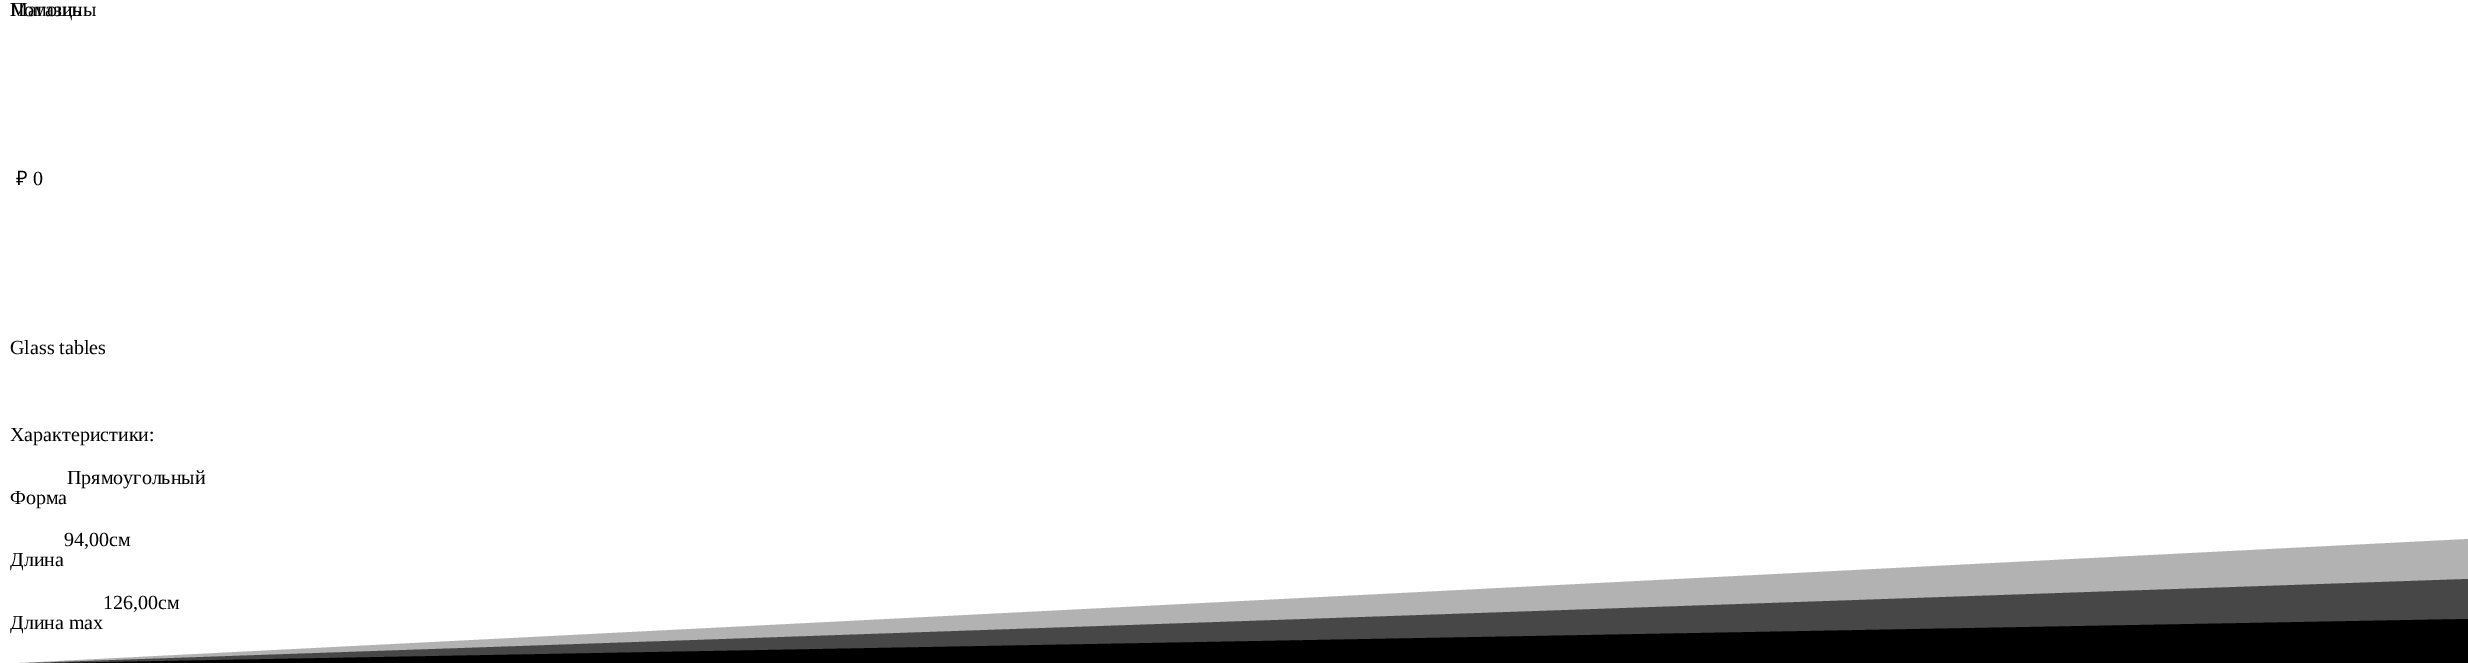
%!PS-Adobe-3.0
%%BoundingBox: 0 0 2468 663
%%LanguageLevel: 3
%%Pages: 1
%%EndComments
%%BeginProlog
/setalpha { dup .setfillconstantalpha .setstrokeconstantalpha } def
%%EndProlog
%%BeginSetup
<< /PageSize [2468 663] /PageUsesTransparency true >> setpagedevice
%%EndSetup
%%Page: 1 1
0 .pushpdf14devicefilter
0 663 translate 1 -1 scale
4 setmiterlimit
1 setgray
0 0 2468 663 rectfill
/LiberationSerif-Regular [20 0 0 -20 0 0] selectfont
0 setgray
10 16 moveto (Помощь) show
10 16 moveto (Магазины) show
/NotoSans-Regular [20 0 0 -20 0 0] selectfont
16 185 moveto (₽) show
/LiberationSerif-Regular [20 0 0 -20 0 0] selectfont
33 185 moveto (0) show
10 354 moveto (Glass tables) show
10 441 moveto (Характеристики:) show
67 484 moveto (Прямоугольный) show
10 504 moveto (Форма) show
64 546 moveto (94,00) show
109 546 moveto (см) show
10 566 moveto (Длина) show
103 609 moveto (126,00) show
158 609 moveto (см) show
10 629 moveto (Длина max) show
0.3 setalpha
newpath 0 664 moveto 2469 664 lineto 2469 539 lineto closepath fill
0.6 setalpha
newpath 0 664 moveto 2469 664 lineto 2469 579 lineto closepath fill
1 setalpha
newpath 0 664 moveto 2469 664 lineto 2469 619 lineto closepath fill
.poppdf14devicefilter showpage
%%EOF
